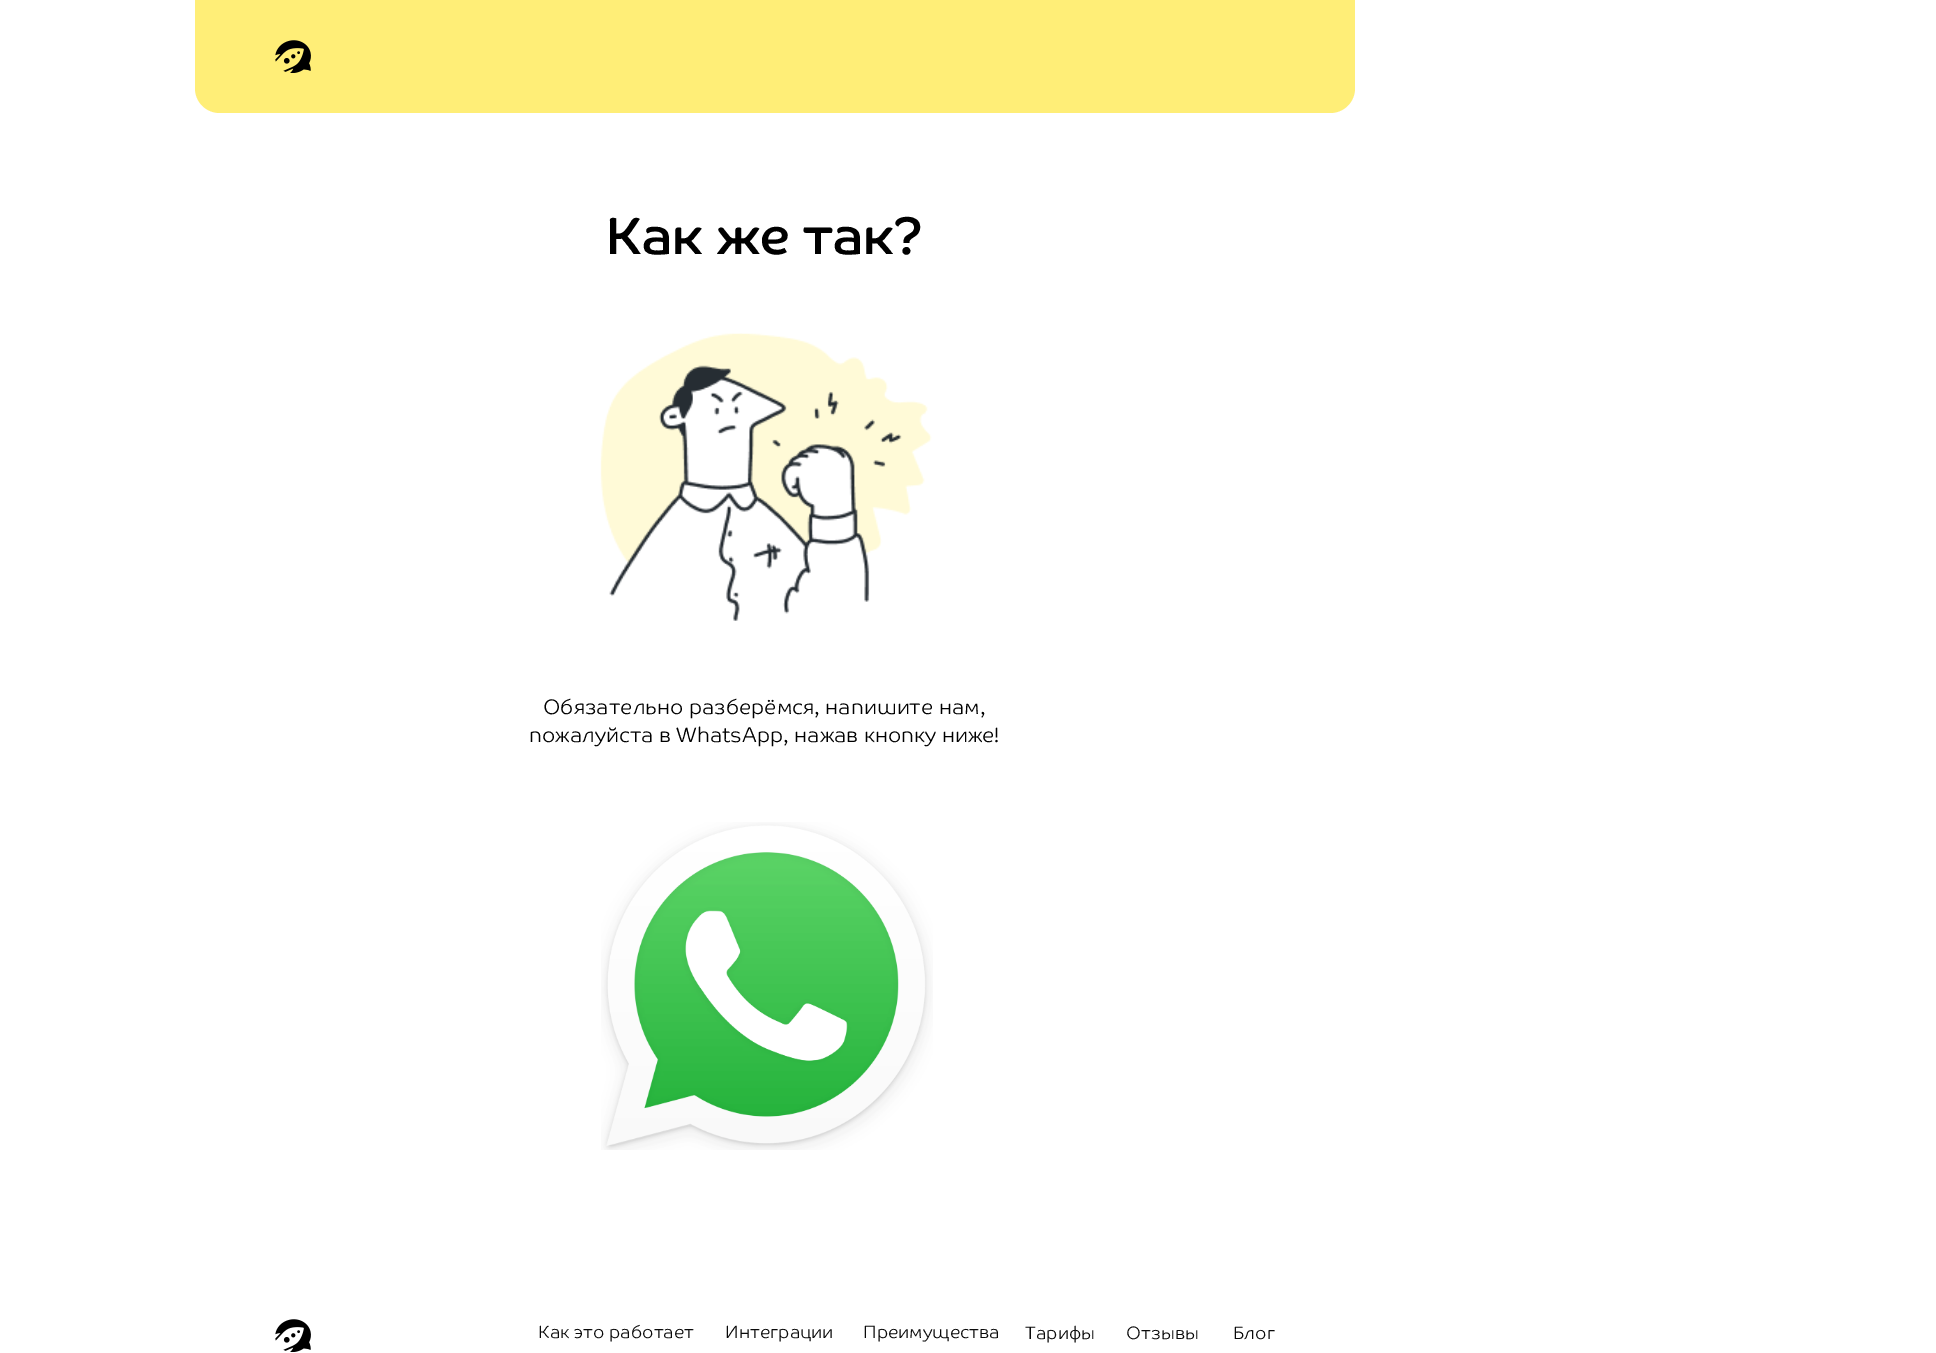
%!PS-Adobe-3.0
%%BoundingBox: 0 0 1936 1353
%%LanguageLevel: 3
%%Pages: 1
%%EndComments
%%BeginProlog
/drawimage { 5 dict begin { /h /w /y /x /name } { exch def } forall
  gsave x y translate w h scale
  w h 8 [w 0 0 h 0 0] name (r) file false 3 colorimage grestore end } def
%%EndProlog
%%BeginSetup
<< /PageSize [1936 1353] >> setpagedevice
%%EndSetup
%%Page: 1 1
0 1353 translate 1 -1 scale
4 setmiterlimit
1 setgray
0 0 1936 1353 rectfill
1 0.933 0.467 setrgbcolor
newpath 195 0 moveto 1355 0 lineto 1355 88 lineto 1355 102 1344 113 1330 113 curveto 220 113 lineto 206 113 195 102 195 88 curveto closepath fill
(images/1.raw) 275 40 36 33 drawimage
(images/2.raw) 600 333 332 288 drawimage
(images/3.raw) 601 822 332 328 drawimage
(images/4.raw) 275 1319 36 33 drawimage
/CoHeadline-Regular [53 0 0 -53 0 0] selectfont
0 setgray
606 254 moveto (Как же так?) show
/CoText-Light [21 0 0 -21 0 0] selectfont
543 714 moveto (Обязательно разберёмся, напишите нам,) show
529 742 moveto (пожалуйста в WhatsApp, нажав кнопку ниже!) show
/CoText-Light [18 0 0 -18 0 0] selectfont
0.039 setgray
538 1338 moveto (Как это работает) show
725 1338 moveto (Интеграции) show
863 1338 moveto (Преимущества) show
1025 1339 moveto (Тарифы) show
1126 1339 moveto (Отзывы) show
1233 1339 moveto (Блог) show
showpage
%%EOF
